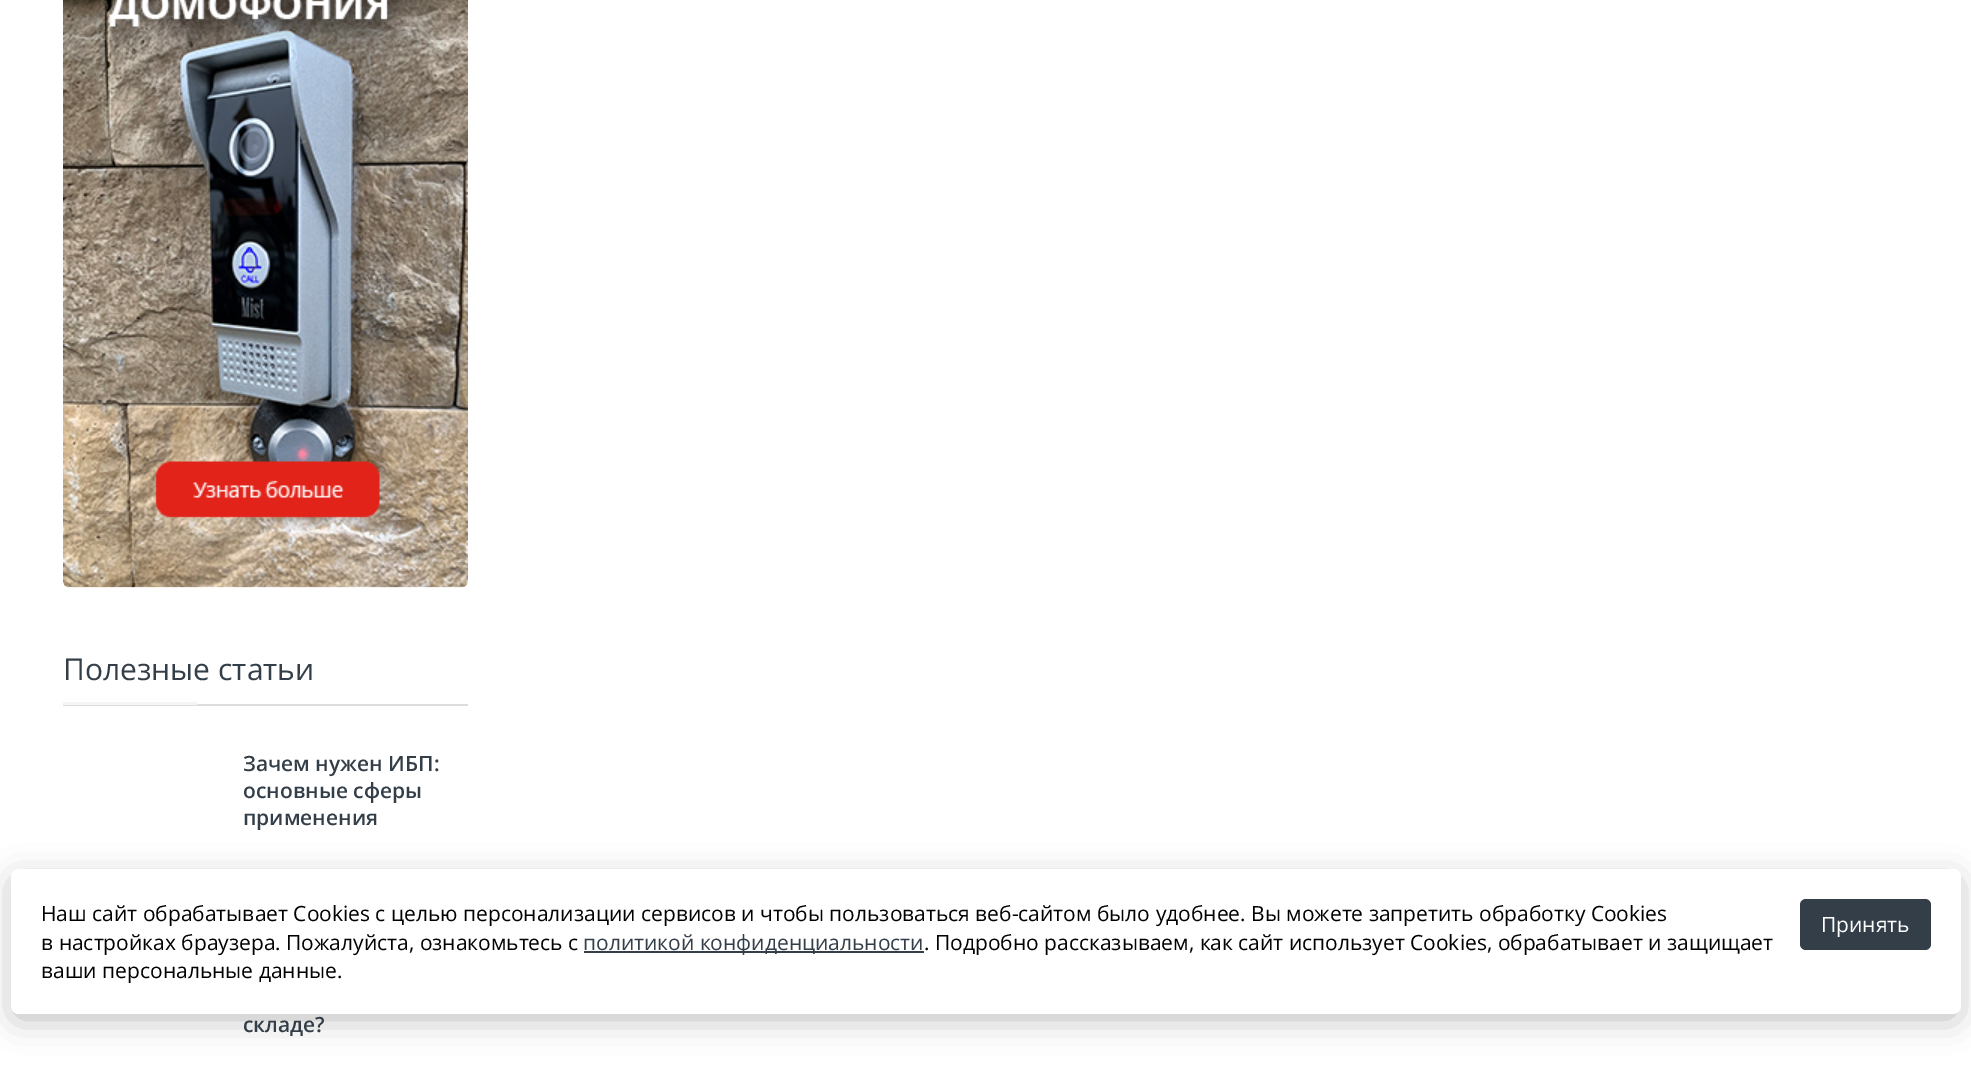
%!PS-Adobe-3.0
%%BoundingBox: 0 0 1971 1074
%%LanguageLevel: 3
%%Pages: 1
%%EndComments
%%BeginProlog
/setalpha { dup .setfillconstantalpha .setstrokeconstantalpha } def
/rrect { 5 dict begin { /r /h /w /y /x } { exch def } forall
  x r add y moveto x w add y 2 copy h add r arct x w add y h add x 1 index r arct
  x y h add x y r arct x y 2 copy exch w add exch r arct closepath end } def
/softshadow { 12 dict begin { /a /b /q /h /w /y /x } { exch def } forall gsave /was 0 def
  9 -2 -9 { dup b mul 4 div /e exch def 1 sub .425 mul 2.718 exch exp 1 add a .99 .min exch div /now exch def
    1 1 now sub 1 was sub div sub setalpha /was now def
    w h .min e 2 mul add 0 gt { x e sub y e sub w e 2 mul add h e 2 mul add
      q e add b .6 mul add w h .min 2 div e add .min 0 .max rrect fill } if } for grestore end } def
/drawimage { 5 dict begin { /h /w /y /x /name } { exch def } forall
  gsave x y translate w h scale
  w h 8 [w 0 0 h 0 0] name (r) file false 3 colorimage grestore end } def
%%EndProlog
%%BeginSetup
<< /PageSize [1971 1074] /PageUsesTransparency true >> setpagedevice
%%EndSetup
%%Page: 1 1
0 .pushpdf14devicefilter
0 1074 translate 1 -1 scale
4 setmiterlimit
1 setgray
0 0 1971 1074 rectfill
(images/1.raw) 63 0 405 588 drawimage
0.867 setgray
63 704 405 2 rectfill
0.961 setgray
63 702 134 3 rectfill
0 setgray
15 881 1941 136 3 17 0.3 softshadow
1 setgray
11 869 1950 145 8 rrect fill
0.2 0.243 0.282 setrgbcolor
1800 899 131 51 6 rrect fill
584 951 340 2 rectfill
/OpenSans-Regular [30 0 0 -30 0 0] selectfont
63 680 moveto (Полезные статьи) show
/OpenSans-SemiBold [21 0 0 -21 0 0] selectfont
243 771 moveto (Зачем нужен ИБП:) show
243 798 moveto (основные сферы) show
243 825 moveto (применения) show
243 1032 moveto (складе?) show
/OpenSans-Regular [21 0 0 -21 0 0] selectfont
0 setgray
41 921 moveto (Наш сайт обрабатывает Cookies с целью персонализации сервисов и чтобы пользоваться веб-сайтом было удобнее. Вы можете запретить обработку Cookies) show
1 setgray
1821 932 moveto (Принять) show
0 setgray
41 950 moveto (в настройках браузера. Пожалуйста, ознакомьтесь с) show
0.2 0.243 0.282 setrgbcolor
583 950 moveto (политикой конфиденциальности) show
0 setgray
924 950 moveto (. Подробно рассказываем, как сайт использует Cookies, обрабатывает и защищает) show
41 978 moveto (ваши персональные данные.) show
.poppdf14devicefilter showpage
%%EOF
